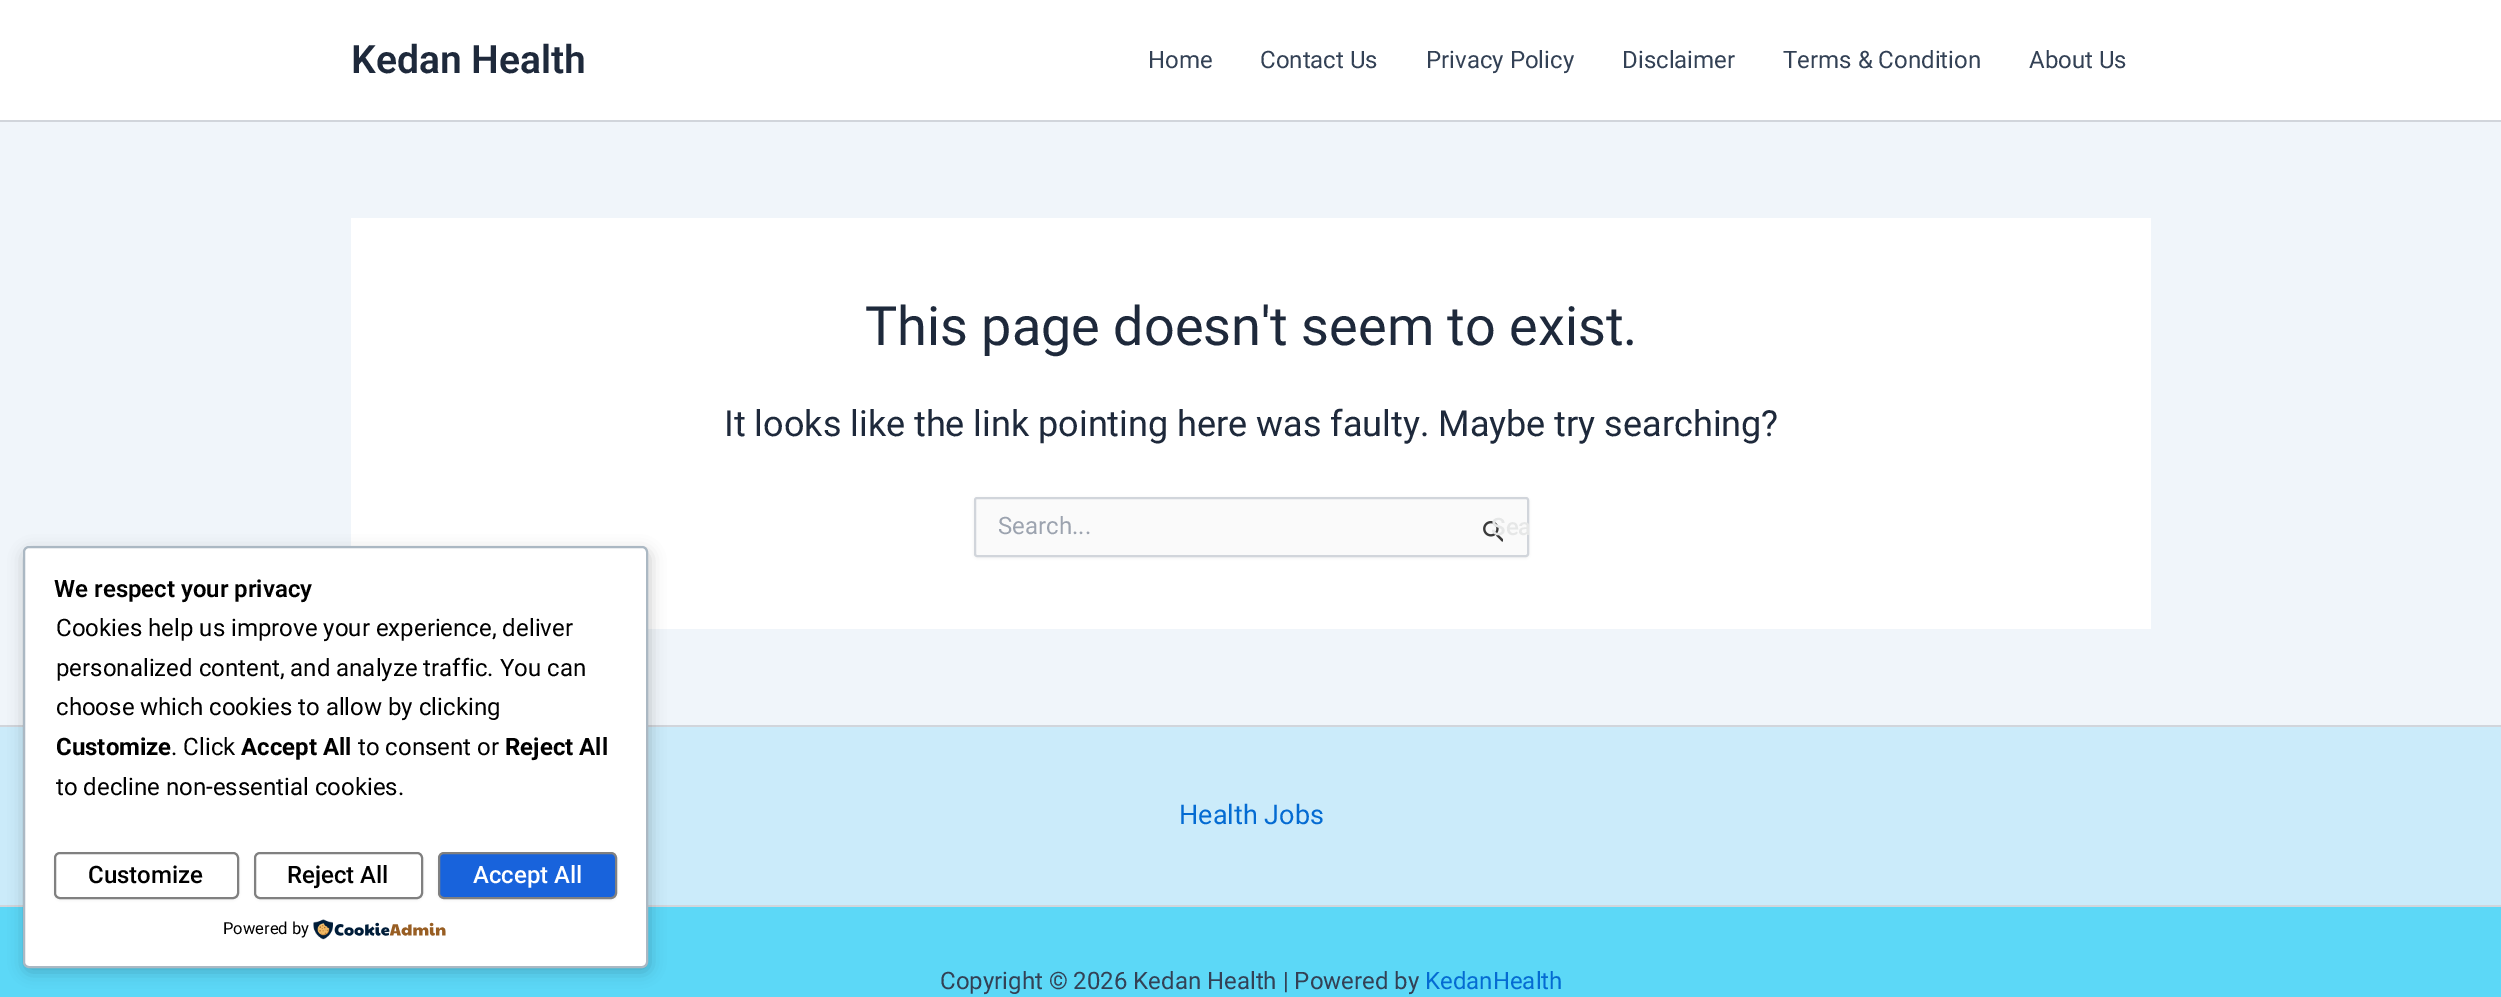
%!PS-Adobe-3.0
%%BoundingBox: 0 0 2501 997
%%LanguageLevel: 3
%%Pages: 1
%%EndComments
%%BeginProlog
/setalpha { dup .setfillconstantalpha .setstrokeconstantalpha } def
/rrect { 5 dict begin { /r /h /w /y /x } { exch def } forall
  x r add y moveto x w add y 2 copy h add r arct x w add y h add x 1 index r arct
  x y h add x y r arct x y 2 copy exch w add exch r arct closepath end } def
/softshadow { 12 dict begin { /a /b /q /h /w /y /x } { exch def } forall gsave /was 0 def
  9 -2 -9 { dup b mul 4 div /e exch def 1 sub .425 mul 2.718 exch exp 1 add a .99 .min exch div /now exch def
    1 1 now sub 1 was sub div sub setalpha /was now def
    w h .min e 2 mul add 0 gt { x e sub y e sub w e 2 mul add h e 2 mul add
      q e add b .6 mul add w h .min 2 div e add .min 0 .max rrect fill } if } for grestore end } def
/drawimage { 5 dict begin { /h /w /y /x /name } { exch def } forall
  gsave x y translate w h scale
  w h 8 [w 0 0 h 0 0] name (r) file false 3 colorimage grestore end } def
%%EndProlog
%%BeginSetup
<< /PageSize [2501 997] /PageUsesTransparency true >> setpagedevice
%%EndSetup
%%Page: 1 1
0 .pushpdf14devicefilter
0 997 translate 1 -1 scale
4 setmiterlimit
0.941 0.961 0.98 setrgbcolor
0 0 2501 997 rectfill
1 setgray
351 218 1800 411 rectfill
0.796 0.922 0.98 setrgbcolor
0 727 2501 178 rectfill
0.82 0.835 0.859 setrgbcolor
0 725 2501 2 rectfill
0.361 0.847 0.969 setrgbcolor
0 907 2501 90 rectfill
0.82 0.835 0.859 setrgbcolor
0 905 2501 2 rectfill
0 setgray
24 551 626 421 6 7.5 0.2 softshadow
1 setgray
24 547 623 420 5 rrect gsave fill grestore
0.671 0.722 0.765 setrgbcolor
2 setlinewidth
stroke
0 setgray
54 854 185 46 6 1.5 0.05 softshadow
1 setgray
55 853 183 45 5 rrect gsave fill grestore
0.502 setgray
stroke
0 setgray
254 854 169 46 6 1.5 0.05 softshadow
1 setgray
255 853 167 45 5 rrect gsave fill grestore
0.502 setgray
stroke
0 setgray
438 854 179 46 6 1.5 0.05 softshadow
0.094 0.388 0.863 setrgbcolor
439 853 177 45 5 rrect gsave fill grestore
0.502 setgray
stroke
(images/1.raw) 313 919 133 21 drawimage
1 setgray
0 0 2501 120 rectfill
0.82 0.835 0.859 setrgbcolor
0 120 2501 2 rectfill
0 setgray
974 498 555 60 3 1.5 0.05 softshadow
0.98 setgray
975 498 553 58 2 rrect gsave fill grestore
0.82 0.835 0.859 setrgbcolor
stroke
(images/2.raw) 1483 521 20 21 drawimage
/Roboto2-SemiBold [24 0 0 -24 0 0] selectfont
0 setgray
54 597 moveto (We respect your privacy) show
/Roboto-Regular [24 0 0 -24 0 0] selectfont
56 636 moveto (Cookies help us improve your experience, deliver) show
56 676 moveto (personalized content, and analyze traffic. You can) show
56 715 moveto (choose which cookies to allow by clicking) show
/Roboto-Bold [24 0 0 -24 0 0] selectfont
56 755 moveto (Customize) show
/Roboto-Regular [24 0 0 -24 0 0] selectfont
171 755 moveto (. Click) show
/Roboto-Bold [24 0 0 -24 0 0] selectfont
241 755 moveto (Accept All) show
/Roboto-Regular [24 0 0 -24 0 0] selectfont
358 755 moveto (to consent or) show
/Roboto-Bold [24 0 0 -24 0 0] selectfont
505 755 moveto (Reject All) show
/Roboto-Regular [24 0 0 -24 0 0] selectfont
56 795 moveto (to decline non-essential cookies.) show
/Roboto-Medium [24 0 0 -24 0 0] selectfont
88 883 moveto (Customize) show
287 883 moveto (Reject All) show
1 setgray
473 883 moveto (Accept All) show
/Roboto-Regular [16.5 0 0 -16.5 0 0] selectfont
0 setgray
223 934 moveto (Powered by) show
/Roboto-SemiBold [39 0 0 -39 0 0] selectfont
0.118 0.161 0.231 setrgbcolor
351 73 moveto (Kedan Health) show
/Roboto-Regular [24 0 0 -24 0 0] selectfont
0.2 0.255 0.333 setrgbcolor
1148 68 moveto (Home) show
1260 68 moveto (Contact Us) show
1426 68 moveto (Privacy Policy) show
1622 68 moveto (Disclaimer) show
1783 68 moveto (Terms & Condition) show
2029 68 moveto (About Us) show
/Roboto-Regular [54 0 0 -54 0 0] selectfont
0.118 0.161 0.231 setrgbcolor
865 345 moveto (This page doesn't seem to exist.) show
/Roboto-Regular [36 0 0 -36 0 0] selectfont
724 436 moveto (It looks like the link pointing here was faulty. Maybe try searching?) show
/Roboto-Regular [24 0 0 -24 0 0] selectfont
0.612 0.639 0.686 setrgbcolor
998 534 moveto (Search...) show
gsave
1461 497 68 63 3 rrect clip newpath
/Roboto-Medium [24 0 0 -24 0 0] selectfont
0.902 0.906 0.906 setrgbcolor
1491 535 moveto (Sea) show
grestore
/Roboto-Regular [27 0 0 -27 0 0] selectfont
0.016 0.42 0.824 setrgbcolor
1179 824 moveto (Health Jobs) show
/Roboto-Regular [24 0 0 -24 0 0] selectfont
0.2 0.255 0.333 setrgbcolor
940 989 moveto (Copyright © 2026 Kedan Health | Powered by) show
0.016 0.42 0.824 setrgbcolor
1425 989 moveto (KedanHealth) show
.poppdf14devicefilter showpage
%%EOF
